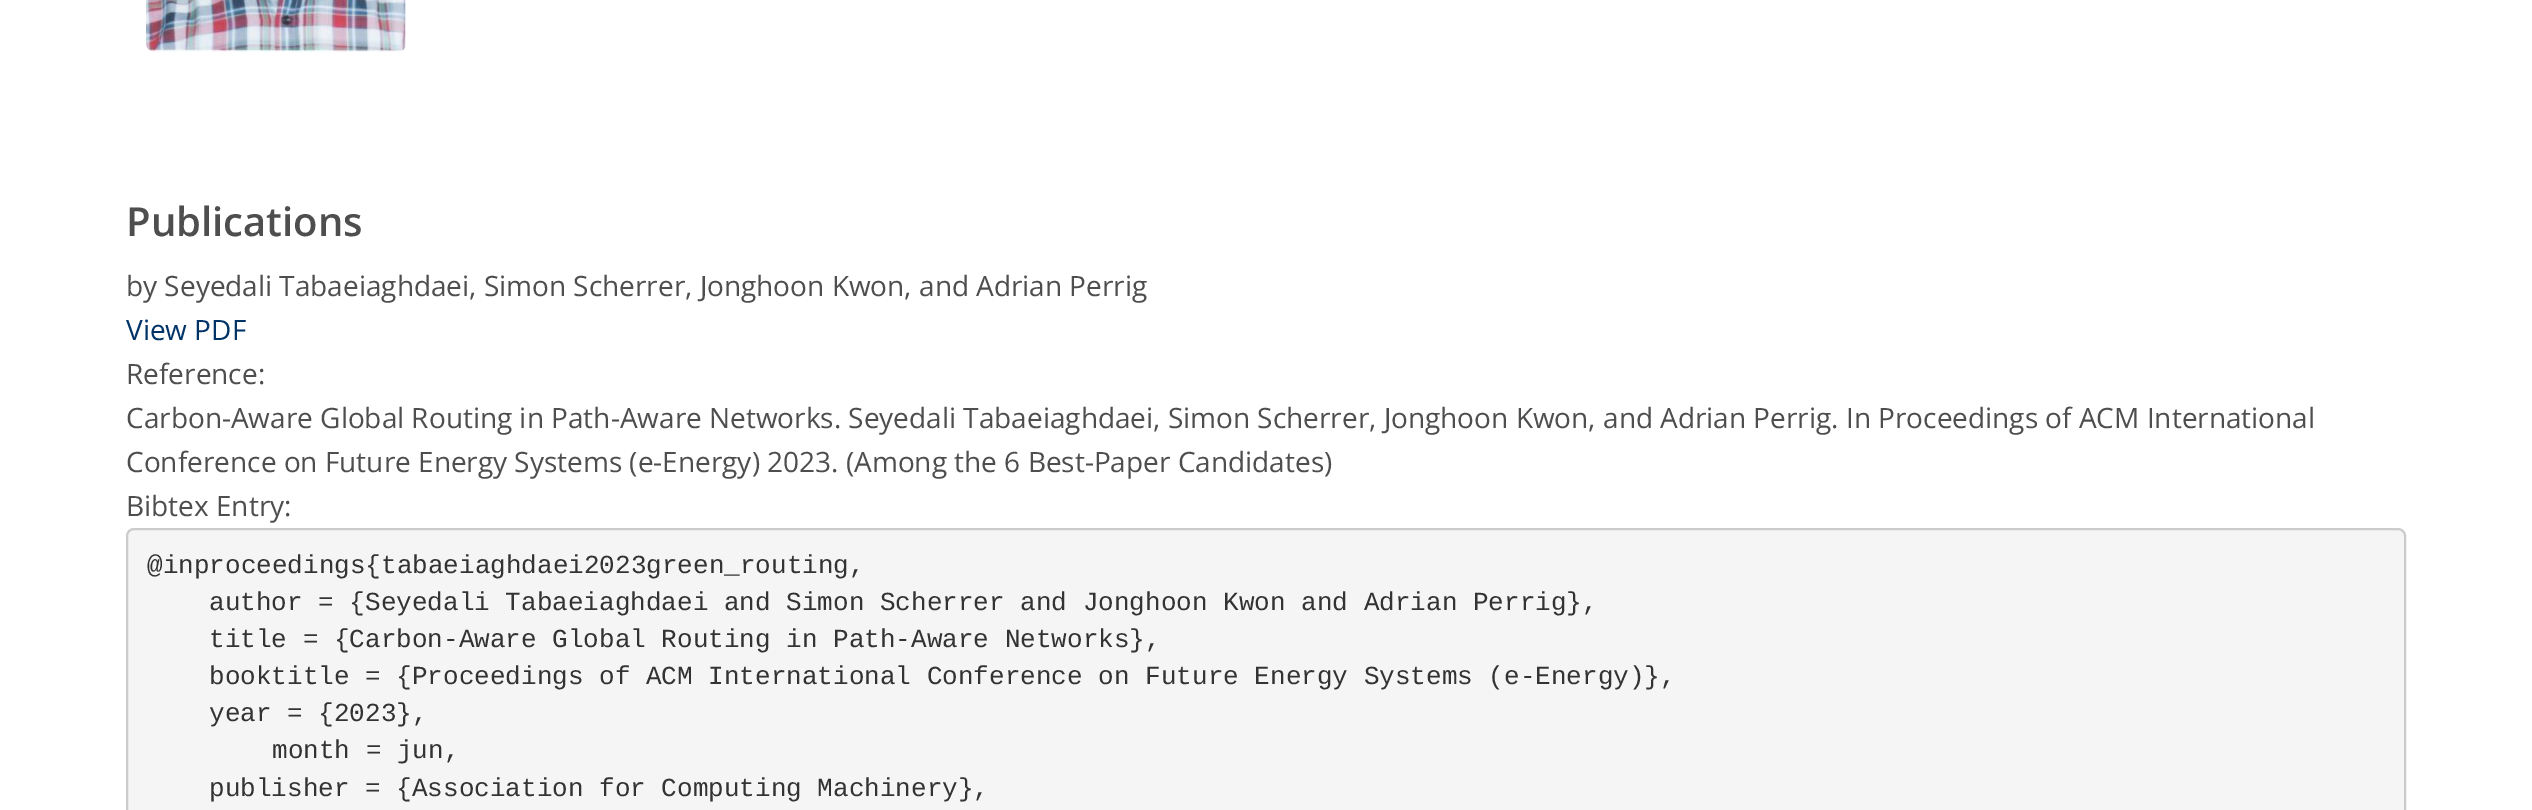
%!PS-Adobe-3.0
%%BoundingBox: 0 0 2532 810
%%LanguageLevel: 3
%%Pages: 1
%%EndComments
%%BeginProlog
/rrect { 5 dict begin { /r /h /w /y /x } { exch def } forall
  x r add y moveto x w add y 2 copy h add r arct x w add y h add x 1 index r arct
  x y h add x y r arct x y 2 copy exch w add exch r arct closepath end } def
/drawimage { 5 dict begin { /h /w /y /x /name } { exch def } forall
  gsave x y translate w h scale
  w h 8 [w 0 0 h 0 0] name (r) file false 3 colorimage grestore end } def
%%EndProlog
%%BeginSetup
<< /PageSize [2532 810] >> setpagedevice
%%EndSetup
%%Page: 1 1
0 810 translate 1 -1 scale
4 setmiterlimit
1 setgray
0 0 2532 810 rectfill
(images/1.raw) 146 0 260 52 drawimage
0.961 setgray
127 529 2278 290 7 rrect gsave fill grestore
0.8 setgray
2 setlinewidth
stroke
/OpenSans-SemiBold [40 0 0 -40 0 0] selectfont
0.306 setgray
126 236 moveto (Publications) show
/OpenSans-Regular [28 0 0 -28 0 0] selectfont
126 296 moveto (by Seyedali Tabaeiaghdaei, Simon Scherrer, Jonghoon Kwon, and Adrian Perrig) show
0 0.2 0.4 setrgbcolor
126 340 moveto (View PDF) show
0.306 setgray
126 384 moveto (Reference:) show
126 428 moveto (Carbon-Aware Global Routing in Path-Aware Networks. Seyedali Tabaeiaghdaei, Simon Scherrer, Jonghoon Kwon, and Adrian Perrig. In Proceedings of ACM International) show
126 472 moveto (Conference on Future Energy Systems \(e-Energy\) 2023. \(Among the 6 Best-Paper Candidates\)) show
126 516 moveto (Bibtex Entry:) show
/LiberationMono-Regular [26 0 0 -26 0 0] selectfont
0.2 setgray
147 573 moveto (@inproceedings{tabaeiaghdaei2023green_routing,) show
209 610 moveto (author = {Seyedali Tabaeiaghdaei and Simon Scherrer and Jonghoon Kwon and Adrian Perrig},) show
209 647 moveto (title = {Carbon-Aware Global Routing in Path-Aware Networks},) show
209 684 moveto (booktitle = {Proceedings of ACM International Conference on Future Energy Systems \(e-Energy\)},) show
209 721 moveto (year = {2023},) show
272 758 moveto (month = jun,) show
209 796 moveto (publisher = {Association for Computing Machinery},) show
showpage
%%EOF
